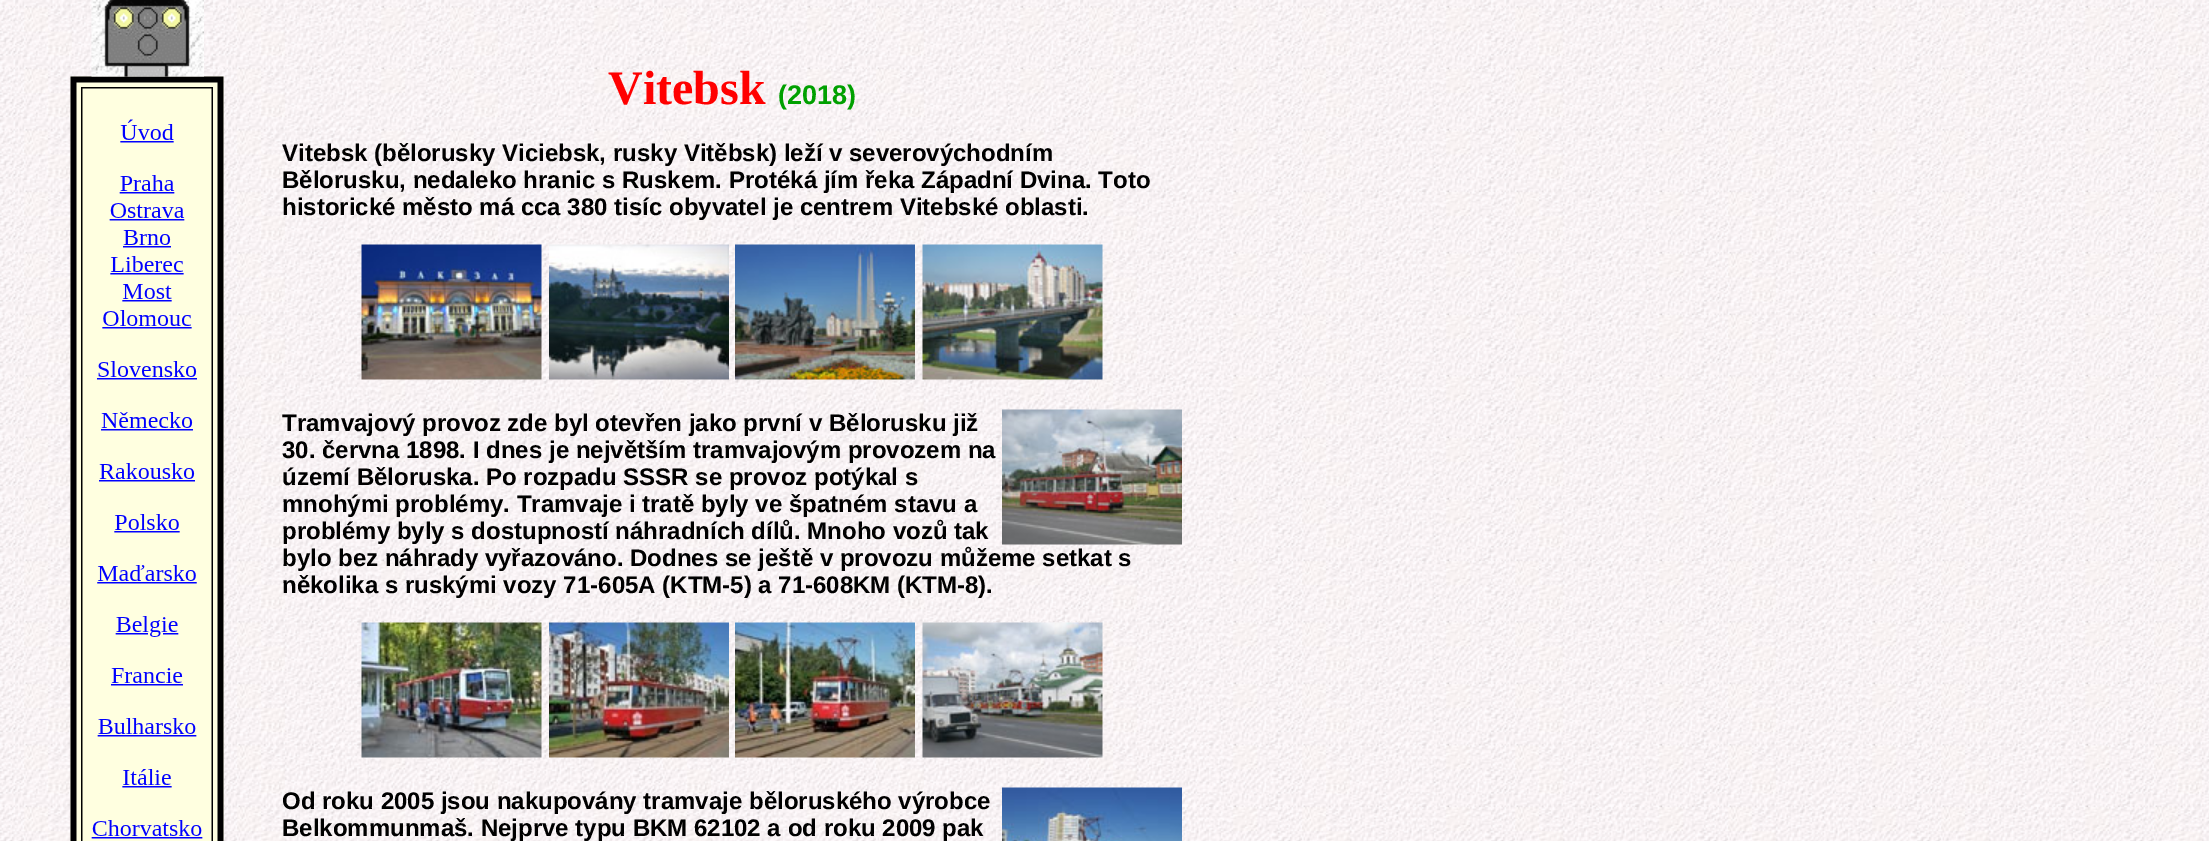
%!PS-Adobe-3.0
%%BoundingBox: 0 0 2209 841
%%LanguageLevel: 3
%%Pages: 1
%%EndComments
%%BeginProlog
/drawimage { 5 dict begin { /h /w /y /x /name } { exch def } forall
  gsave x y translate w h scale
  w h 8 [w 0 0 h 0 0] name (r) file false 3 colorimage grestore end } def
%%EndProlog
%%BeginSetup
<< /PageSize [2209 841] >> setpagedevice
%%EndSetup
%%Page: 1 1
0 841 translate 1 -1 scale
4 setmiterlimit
1 setgray
0 0 2209 841 rectfill
(images/1.raw) 0 0 2209 841 drawimage
(images/2.raw) 70 0 154 841 drawimage
(images/3.raw) 361 244 181 136 drawimage
(images/4.raw) 549 244 180 136 drawimage
(images/5.raw) 735 244 180 136 drawimage
(images/6.raw) 922 244 181 136 drawimage
(images/7.raw) 1002 409 180 136 drawimage
(images/8.raw) 361 622 181 136 drawimage
(images/9.raw) 549 622 180 136 drawimage
(images/10.raw) 735 622 180 136 drawimage
(images/11.raw) 922 622 181 136 drawimage
(images/12.raw) 1002 787 180 54 drawimage
/LiberationSerif-Bold [48 0 0 -48 0 0] selectfont
1 0 0 setrgbcolor
608 104 moveto (Vitebsk) show
/LiberationSans-Bold [27 0 0 -27 0 0] selectfont
0 0.627 0 setrgbcolor
778 104 moveto (\(2018\)) show
/LiberationSans-Bold [24 0 0 -24 0 0] selectfont
0 setgray
282 161 moveto (Vitebsk \(bělorusky Viciebsk, rusky Vitěbsk\) leží v severovýchodním) show
282 188 moveto (Bělorusku, nedaleko hranic s Ruskem. Protéká jím řeka Západní Dvina. Toto) show
282 215 moveto (historické město má cca 380 tisíc obyvatel je centrem Vitebské oblasti.) show
282 431 moveto (Tramvajový provoz zde byl otevřen jako první v Bělorusku již) show
282 458 moveto (30. června 1898. I dnes je největším tramvajovým provozem na) show
282 485 moveto (území Běloruska. Po rozpadu SSSR se provoz potýkal s) show
282 512 moveto (mnohými problémy. Tramvaje i tratě byly ve špatném stavu a) show
282 539 moveto (problémy byly s dostupností náhradních dílů. Mnoho vozů tak) show
282 566 moveto (bylo bez náhrady vyřazováno. Dodnes se ještě v provozu můžeme setkat s) show
282 593 moveto (několika s ruskými vozy 71-605A \(KTM-5\) a 71-608KM \(KTM-8\).) show
282 809 moveto (Od roku 2005 jsou nakupovány tramvaje běloruského výrobce) show
282 836 moveto (Belkommunmaš. Nejprve typu BKM 62102 a od roku 2009 pak) show
showpage
%%EOF
